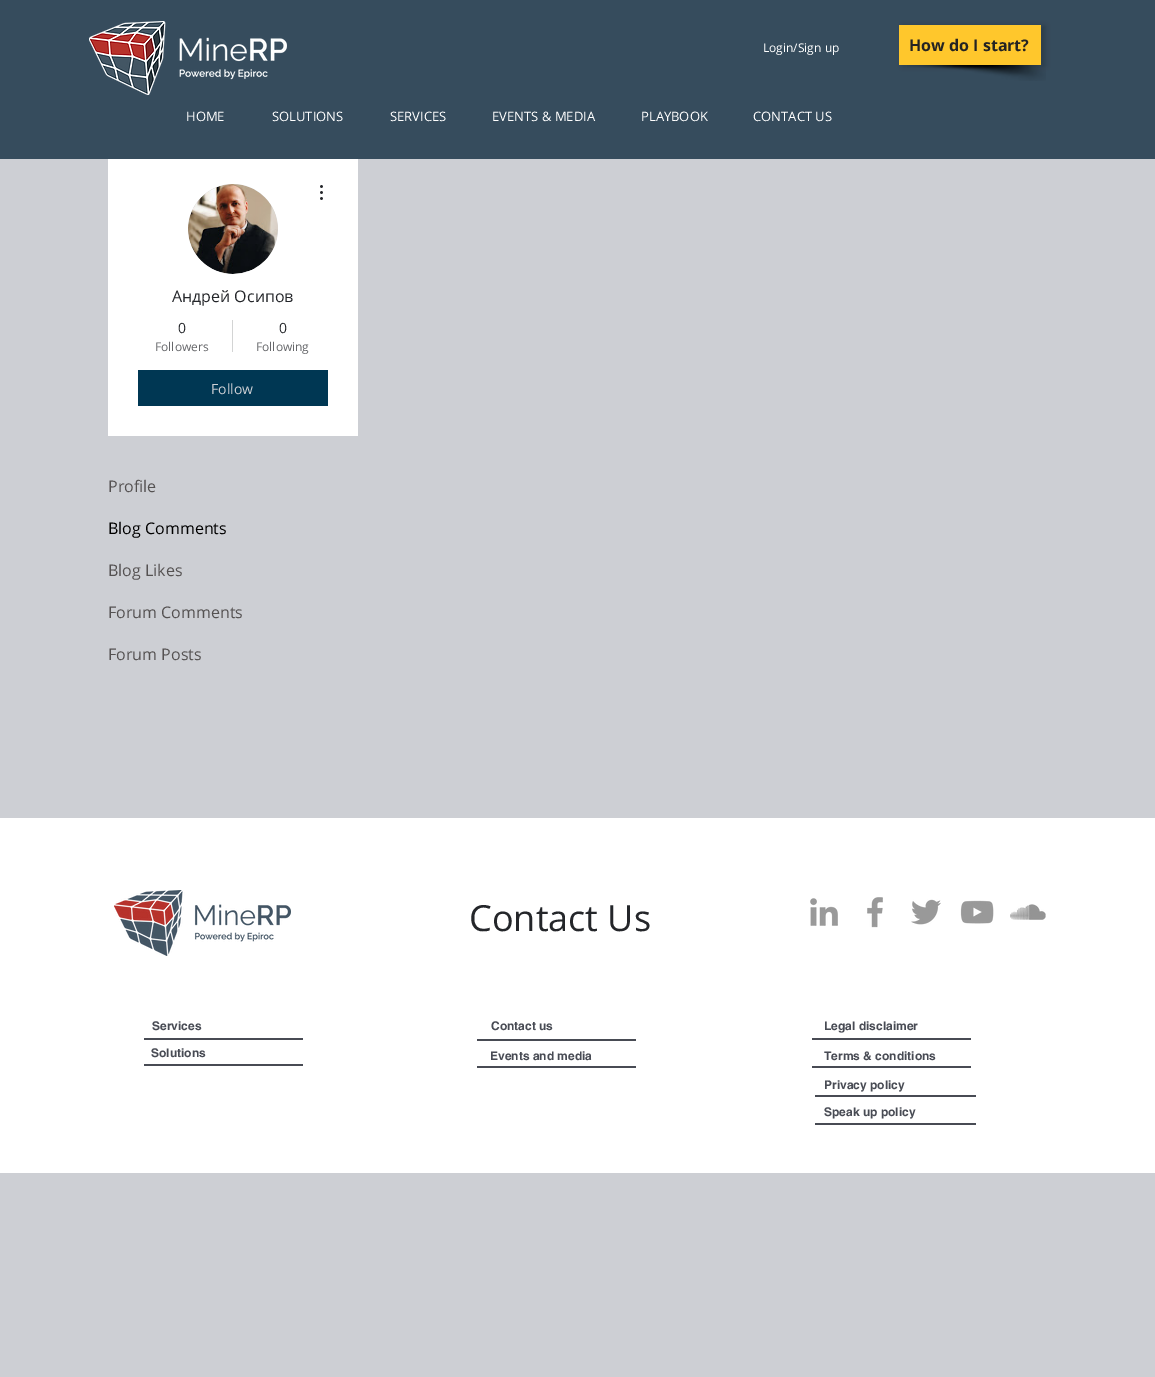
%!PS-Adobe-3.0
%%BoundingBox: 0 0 1155 1377
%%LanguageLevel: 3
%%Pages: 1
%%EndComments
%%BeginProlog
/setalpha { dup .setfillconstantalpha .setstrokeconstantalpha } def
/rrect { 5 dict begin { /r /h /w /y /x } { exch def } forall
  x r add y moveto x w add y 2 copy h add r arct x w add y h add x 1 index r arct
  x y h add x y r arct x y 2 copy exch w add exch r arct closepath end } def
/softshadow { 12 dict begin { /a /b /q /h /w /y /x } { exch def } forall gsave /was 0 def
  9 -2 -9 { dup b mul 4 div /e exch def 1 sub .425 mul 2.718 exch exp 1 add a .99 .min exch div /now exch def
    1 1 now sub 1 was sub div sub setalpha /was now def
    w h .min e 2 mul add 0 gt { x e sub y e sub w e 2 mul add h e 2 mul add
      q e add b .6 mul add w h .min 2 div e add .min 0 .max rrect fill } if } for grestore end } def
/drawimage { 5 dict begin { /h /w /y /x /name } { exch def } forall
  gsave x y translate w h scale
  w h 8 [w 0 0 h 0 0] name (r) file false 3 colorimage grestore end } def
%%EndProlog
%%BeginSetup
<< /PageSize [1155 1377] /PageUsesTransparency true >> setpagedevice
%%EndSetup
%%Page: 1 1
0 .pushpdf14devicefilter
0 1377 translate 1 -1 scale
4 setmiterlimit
0.804 0.812 0.831 setrgbcolor
0 0 1155 1377 rectfill
0.212 0.298 0.365 setrgbcolor
0 0 1155 159 rectfill
(images/1.raw) 89 21 198 74 drawimage
(images/2.raw) 907 65 139 16 drawimage
0 setgray
903 26 142 40 0 3 0.2 softshadow
1 0.78 0.173 setrgbcolor
899 25 142 40 rectfill
1 setgray
108 159 250 277 rectfill
0.847 setgray
newpath 233 229 45 0 360 arc closepath fill
(images/3.raw) 188 184 90 90 drawimage
(images/4.raw) 320 185 3 15 drawimage
0.827 0.831 0.831 setrgbcolor
232 320 1 32 rectfill
0 0.216 0.325 setrgbcolor
138 370 190 36 rectfill
1 setgray
0 818 1155 355 rectfill
(images/5.raw) 114 890 177 66 drawimage
(images/6.raw) 810 898 28 28 drawimage
(images/7.raw) 867 897 16 31 drawimage
(images/8.raw) 911 899 30 26 drawimage
(images/9.raw) 960 900 34 24 drawimage
(images/10.raw) 1010 904 36 16 drawimage
0.282 0.294 0.329 setrgbcolor
144 1038 159 2 rectfill
144 1064 159 2 rectfill
812 1038 159 2 rectfill
812 1066 159 2 rectfill
815 1095 161 2 rectfill
815 1123 161 2 rectfill
477 1039 159 2 rectfill
477 1066 159 2 rectfill
/OpenSans-Regular [12 0 0 -12 0 0] selectfont
1 setgray
763 52 moveto (Login/Sign up) show
/OpenSans-Bold [16 0 0 -16 0 0] selectfont
0.141 0.137 0.137 setrgbcolor
909 51 moveto (How do I start?) show
/OpenSans-Regular [13 0 0 -13 0 0] selectfont
1 setgray
186 121 moveto (HOME) show
272 121 moveto (SOLUTIONS) show
390 121 moveto (SERVICES) show
492 121 moveto (EVENTS & MEDIA) show
641 121 moveto (PLAYBOOK) show
753 121 moveto (CONTACT US) show
/OpenSans-Regular [16 0 0 -16 0 0] selectfont
0.141 0.149 0.165 setrgbcolor
172 302 moveto (Андрей Осипов) show
/OpenSans-Regular [14 0 0 -14 0 0] selectfont
178 333 moveto (0) show
/OpenSans-Regular [12 0 0 -12 0 0] selectfont
0.4 0.404 0.416 setrgbcolor
155 351 moveto (Followers) show
/OpenSans-Regular [14 0 0 -14 0 0] selectfont
0.141 0.149 0.165 setrgbcolor
279 333 moveto (0) show
/OpenSans-Regular [12 0 0 -12 0 0] selectfont
0.4 0.404 0.416 setrgbcolor
256 351 moveto (Following) show
/OpenSans-Regular [14 0 0 -14 0 0] selectfont
0.804 0.812 0.831 setrgbcolor
211 394 moveto (Follow) show
/OpenSans-Regular [16 0 0 -16 0 0] selectfont
0.333 0.322 0.322 setrgbcolor
108 492 moveto (Profile) show
0 setgray
108 534 moveto (Blog Comments) show
0.333 0.322 0.322 setrgbcolor
108 576 moveto (Blog Likes) show
108 618 moveto (Forum Comments) show
108 660 moveto (Forum Posts) show
/OpenSans-Regular [36 0 0 -36 0 0] selectfont
0.141 0.149 0.165 setrgbcolor
469 931 moveto (Contact Us) show
/helvetica-Bold [12 0 0 -12 0 0] selectfont
0.282 0.294 0.329 setrgbcolor
152 1030 moveto (Services) show
151 1057 moveto (Solutions) show
491 1030 moveto (Contact us) show
824 1030 moveto (Legal disclaimer) show
824 1060 moveto (Terms & conditions) show
824 1089 moveto (Privacy policy) show
824 1116 moveto (Speak up policy) show
490 1060 moveto (Events and media) show
.poppdf14devicefilter showpage
%%EOF
